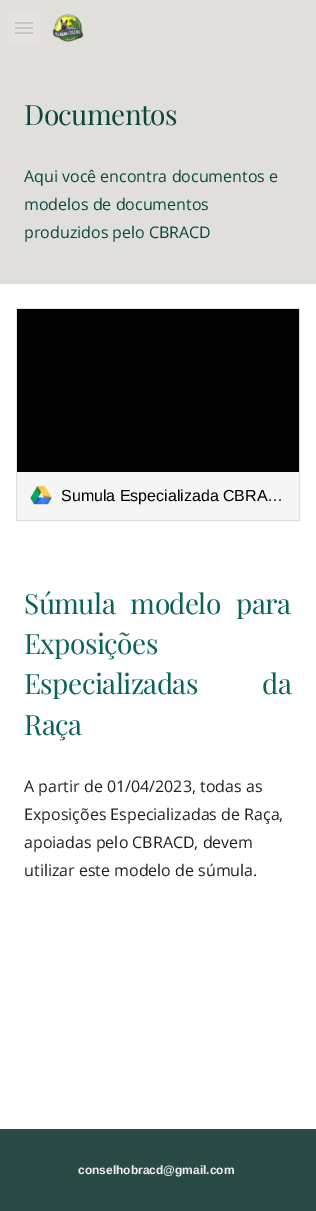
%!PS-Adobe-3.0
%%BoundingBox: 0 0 316 1211
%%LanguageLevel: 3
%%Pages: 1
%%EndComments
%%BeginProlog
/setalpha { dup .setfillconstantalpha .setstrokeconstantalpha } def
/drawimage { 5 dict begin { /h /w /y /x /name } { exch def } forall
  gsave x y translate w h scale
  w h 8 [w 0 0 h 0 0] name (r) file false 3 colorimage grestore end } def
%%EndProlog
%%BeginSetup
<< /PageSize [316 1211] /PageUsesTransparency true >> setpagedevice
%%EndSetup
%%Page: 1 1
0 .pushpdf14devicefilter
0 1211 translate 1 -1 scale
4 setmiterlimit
1 setgray
0 0 316 1211 rectfill
0.882 0.875 0.859 setrgbcolor
0 0 316 284 rectfill
0.753 0.741 0.722 setrgbcolor
15 22 18 2 rectfill
15 27 18 2 rectfill
15 32 18 2 rectfill
0.12 setalpha
1 setgray
8 12 32 32 rectfill
1 setalpha
(images/1.raw) 52 14 32 28 drawimage
0.878 setgray
16.5 308.5 283 212 rectstroke
0 setgray
17 309 282 163 rectfill
0.961 setgray
17 472 282 48 rectfill
(images/2.raw) 30 486 22 19 drawimage
0.165 0.29 0.275 setrgbcolor
0 1129 316 82 rectfill
/PlayfairDisplay-Regular [28 0 0 -28 0 0] selectfont
0.039 0.278 0.239 setrgbcolor
24 125 moveto -0.6 0 (Documentos) ashow
/OpenSans-Regular [16 0 0 -16 0 0] selectfont
24 182 moveto (Aqui você encontra documentos e) show
24 210 moveto (modelos de documentos) show
24 238 moveto (produzidos pelo CBRACD) show
/LiberationSans-Regular [16 0 0 -16 0 0] selectfont
0 setgray
61 501 moveto (Sumula Especializada CBRA…) show
/PlayfairDisplay-Regular [28 0 0 -28 0 0] selectfont
0.043 0.392 0.353 setrgbcolor
24 614 moveto 9 0 32 -0.6 0 (Súmula modelo para) awidthshow
24 654 moveto -0.6 0 (Exposições) ashow
24 694 moveto 58 0 32 -0.6 0 (Especializadas da) awidthshow
24 735 moveto -0.6 0 (Raça) ashow
/OpenSans-Regular [16 0 0 -16 0 0] selectfont
0.129 setgray
24 792 moveto (A partir de 01/04/2023, todas as) show
24 820 moveto (Exposições Especializadas de Raça,) show
24 848 moveto (apoiadas pelo CBRACD, devem) show
24 876 moveto (utilizar este modelo de súmula.) show
/LiberationSans-Bold [12 0 0 -12 0 0] selectfont
0.937 setgray
78 1174 moveto (conselhobracd@gmail.com) show
.poppdf14devicefilter showpage
%%EOF
